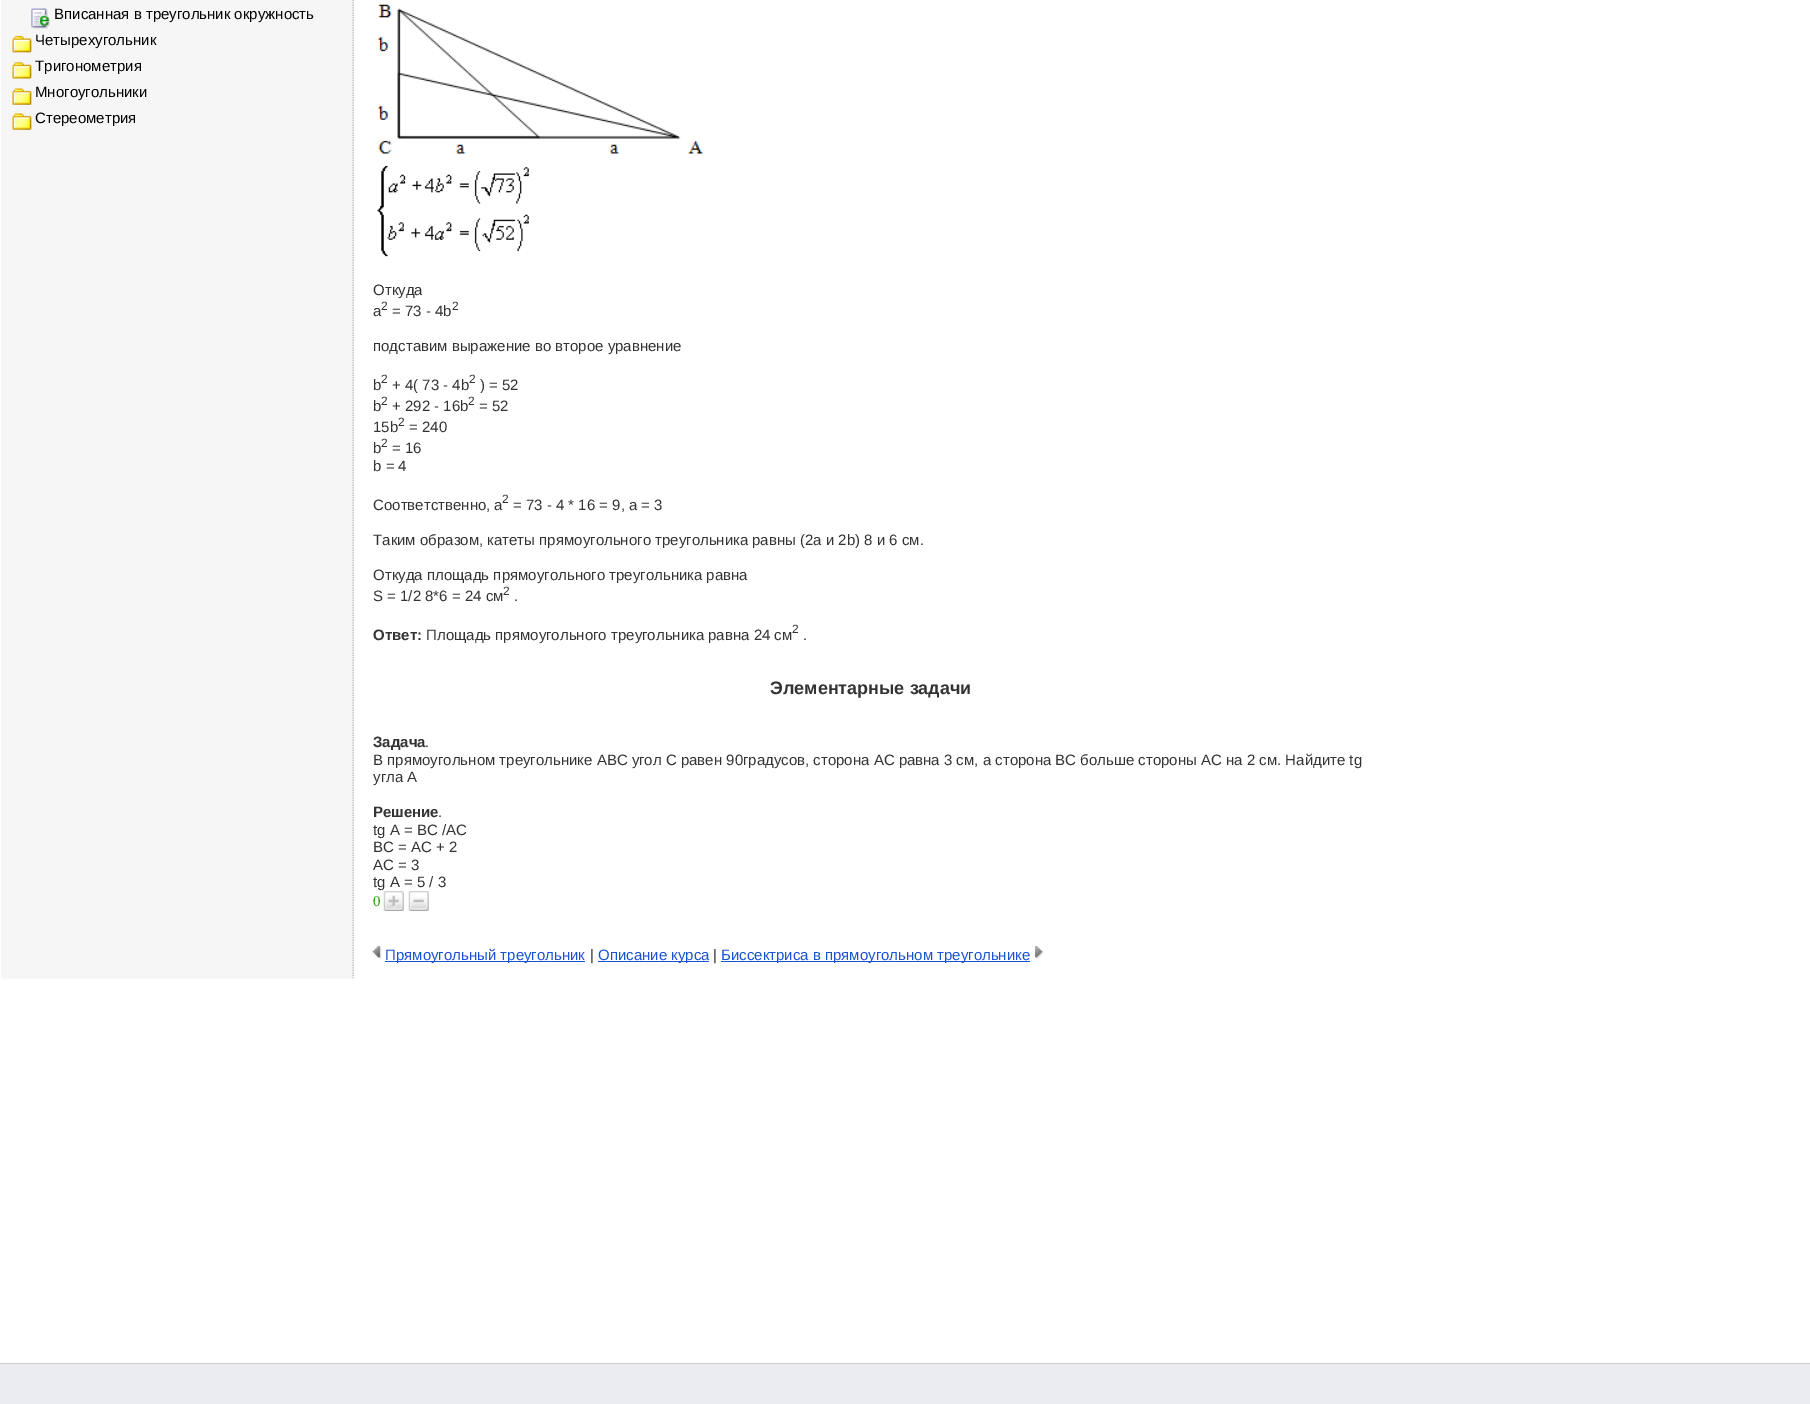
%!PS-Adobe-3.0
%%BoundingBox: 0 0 1810 1404
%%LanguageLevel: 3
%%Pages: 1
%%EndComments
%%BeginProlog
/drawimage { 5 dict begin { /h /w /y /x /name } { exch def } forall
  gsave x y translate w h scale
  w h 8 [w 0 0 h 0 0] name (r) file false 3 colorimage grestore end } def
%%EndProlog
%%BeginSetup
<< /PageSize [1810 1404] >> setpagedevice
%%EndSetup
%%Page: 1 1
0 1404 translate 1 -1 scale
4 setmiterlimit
1 setgray
0 0 1810 1404 rectfill
(images/1.raw) 1 0 353 979 drawimage
(images/2.raw) 31 8 19 21 drawimage
(images/3.raw) 12 35 20 18 drawimage
(images/4.raw) 12 62 20 17 drawimage
(images/5.raw) 12 88 20 17 drawimage
(images/5.raw) 12 113 20 17 drawimage
(images/6.raw) 377 4 326 253 drawimage
(images/7.raw) 383 891 21 20 drawimage
(images/8.raw) 408 891 21 20 drawimage
(images/9.raw) 372 946 10 13 drawimage
0.098 0.322 0.827 setrgbcolor
385 961 200 1 rectfill
598 961 111 1 rectfill
721 961 309 1 rectfill
(images/10.raw) 1035 946 9 13 drawimage
0.918 0.925 0.945 setrgbcolor
0 1364 1810 40 rectfill
0.8 setgray
0 1363 1810 1 rectfill
/LiberationSans-Regular [15 0 0 -15 0 0] selectfont
0 setgray
54 19 moveto (Вписанная в треугольник окружность) show
35 45 moveto (Четырехугольник) show
35 71 moveto (Тригонометрия) show
35 97 moveto (Многоугольники) show
35 123 moveto (Стереометрия) show
0.2 setgray
373 295 moveto (Откуда) show
373 316 moveto (a) show
/LiberationSans-Regular [12 0 0 -12 0 0] selectfont
381 310 moveto (2) show
/LiberationSans-Regular [15 0 0 -15 0 0] selectfont
392 316 moveto (= 73 - 4b) show
/LiberationSans-Regular [12 0 0 -12 0 0] selectfont
452 310 moveto (2) show
/LiberationSans-Regular [15 0 0 -15 0 0] selectfont
373 351 moveto (подставим выражение во второе уравнение) show
373 390 moveto (b) show
/LiberationSans-Regular [12 0 0 -12 0 0] selectfont
381 383 moveto (2) show
/LiberationSans-Regular [15 0 0 -15 0 0] selectfont
392 390 moveto (+ 4\( 73 - 4b) show
/LiberationSans-Regular [12 0 0 -12 0 0] selectfont
469 383 moveto (2) show
/LiberationSans-Regular [15 0 0 -15 0 0] selectfont
480 390 moveto (\) = 52) show
373 411 moveto (b) show
/LiberationSans-Regular [12 0 0 -12 0 0] selectfont
381 405 moveto (2) show
/LiberationSans-Regular [15 0 0 -15 0 0] selectfont
392 411 moveto (+ 292 - 16b) show
/LiberationSans-Regular [12 0 0 -12 0 0] selectfont
468 405 moveto (2) show
/LiberationSans-Regular [15 0 0 -15 0 0] selectfont
479 411 moveto (= 52) show
373 432 moveto (15b) show
/LiberationSans-Regular [12 0 0 -12 0 0] selectfont
398 426 moveto (2) show
/LiberationSans-Regular [15 0 0 -15 0 0] selectfont
409 432 moveto (= 240) show
373 453 moveto (b) show
/LiberationSans-Regular [12 0 0 -12 0 0] selectfont
381 447 moveto (2) show
/LiberationSans-Regular [15 0 0 -15 0 0] selectfont
392 453 moveto (= 16) show
373 471 moveto (b = 4) show
373 510 moveto (Соответственно, а) show
/LiberationSans-Regular [12 0 0 -12 0 0] selectfont
502 503 moveto (2) show
/LiberationSans-Regular [15 0 0 -15 0 0] selectfont
513 510 moveto (= 73 - 4 * 16 = 9, а = 3) show
373 545 moveto (Таким образом, катеты прямоугольного треугольника равны \(2a и 2b\) 8 и 6 см.) show
373 580 moveto (Откуда площадь прямоугольного треугольника равна) show
373 601 moveto (S = 1/2 8*6 = 24 см) show
/LiberationSans-Regular [12 0 0 -12 0 0] selectfont
503 595 moveto (2) show
/LiberationSans-Regular [15 0 0 -15 0 0] selectfont
514 601 moveto (.) show
/LiberationSans-Bold [15 0 0 -15 0 0] selectfont
373 640 moveto (Ответ:) show
/LiberationSans-Regular [15 0 0 -15 0 0] selectfont
426 640 moveto (Площадь прямоугольного треугольника равна 24 см) show
/LiberationSans-Regular [12 0 0 -12 0 0] selectfont
792 633 moveto (2) show
/LiberationSans-Regular [15 0 0 -15 0 0] selectfont
803 640 moveto (.) show
/LiberationSans-Bold [18 0 0 -18 0 0] selectfont
770 694 moveto (Элементарные задачи) show
/LiberationSans-Bold [15 0 0 -15 0 0] selectfont
373 747 moveto (Задача) show
/LiberationSans-Regular [15 0 0 -15 0 0] selectfont
425 747 moveto (.) show
373 765 moveto (В прямоугольном треугольнике АВС угол С равен 90градусов, сторона АС равна 3 см, а сторона ВС больше стороны АС на 2 см. Найдите tg) show
373 782 moveto (угла А) show
/LiberationSans-Bold [15 0 0 -15 0 0] selectfont
373 817 moveto (Решение) show
/LiberationSans-Regular [15 0 0 -15 0 0] selectfont
438 817 moveto (.) show
373 835 moveto (tg A = BC /AC) show
373 852 moveto (BC = AC + 2) show
373 870 moveto (AC = 3) show
373 887 moveto (tg A = 5 / 3) show
/LiberationSerif-Regular [15 0 0 -15 0 0] selectfont
0.157 0.608 0 setrgbcolor
373 906 moveto (0) show
/LiberationSans-Regular [15 0 0 -15 0 0] selectfont
0.098 0.322 0.827 setrgbcolor
385 960 moveto (Прямоугольный треугольник) show
0.2 setgray
590 960 moveto (|) show
0.098 0.322 0.827 setrgbcolor
598 960 moveto (Описание курса) show
0.2 setgray
713 960 moveto (|) show
0.098 0.322 0.827 setrgbcolor
721 960 moveto (Биссектриса в прямоугольном треугольнике) show
showpage
%%EOF
